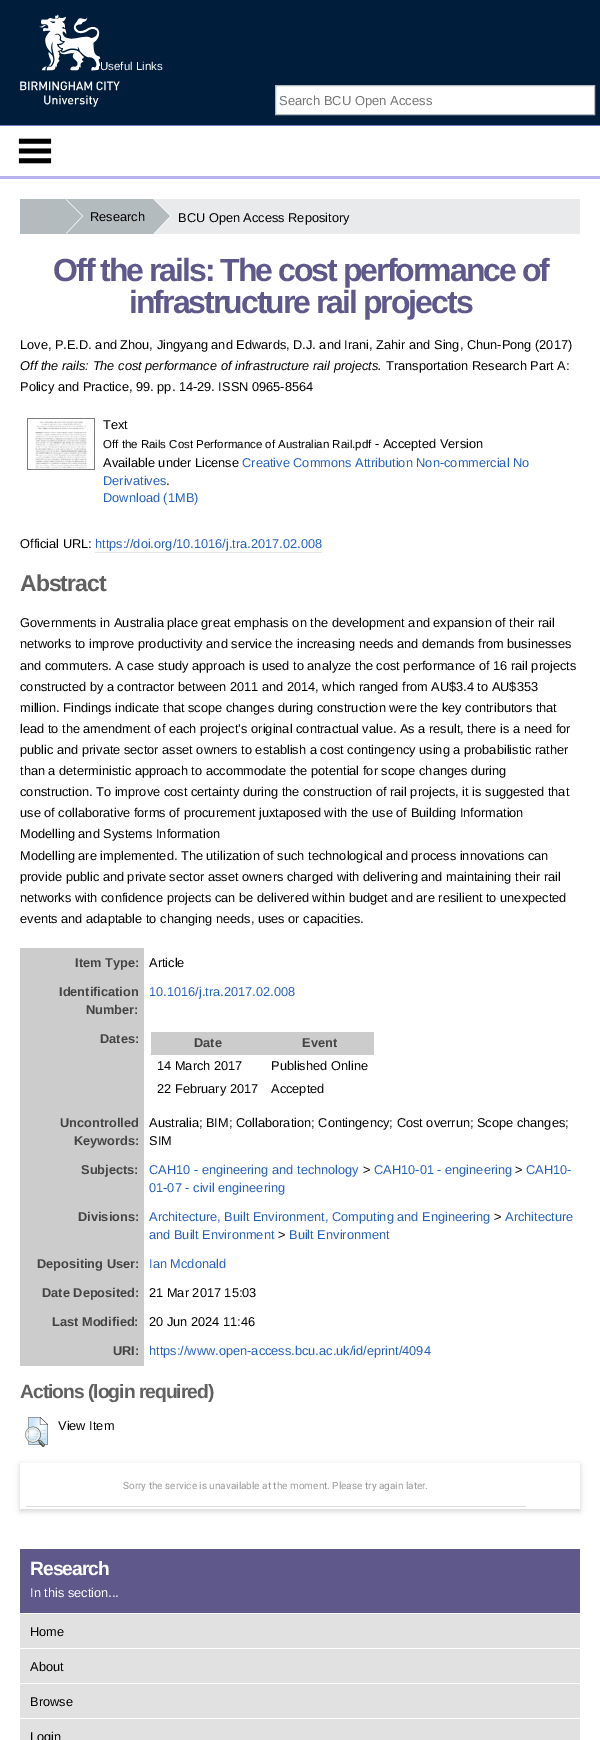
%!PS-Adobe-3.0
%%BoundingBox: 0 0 600 1740
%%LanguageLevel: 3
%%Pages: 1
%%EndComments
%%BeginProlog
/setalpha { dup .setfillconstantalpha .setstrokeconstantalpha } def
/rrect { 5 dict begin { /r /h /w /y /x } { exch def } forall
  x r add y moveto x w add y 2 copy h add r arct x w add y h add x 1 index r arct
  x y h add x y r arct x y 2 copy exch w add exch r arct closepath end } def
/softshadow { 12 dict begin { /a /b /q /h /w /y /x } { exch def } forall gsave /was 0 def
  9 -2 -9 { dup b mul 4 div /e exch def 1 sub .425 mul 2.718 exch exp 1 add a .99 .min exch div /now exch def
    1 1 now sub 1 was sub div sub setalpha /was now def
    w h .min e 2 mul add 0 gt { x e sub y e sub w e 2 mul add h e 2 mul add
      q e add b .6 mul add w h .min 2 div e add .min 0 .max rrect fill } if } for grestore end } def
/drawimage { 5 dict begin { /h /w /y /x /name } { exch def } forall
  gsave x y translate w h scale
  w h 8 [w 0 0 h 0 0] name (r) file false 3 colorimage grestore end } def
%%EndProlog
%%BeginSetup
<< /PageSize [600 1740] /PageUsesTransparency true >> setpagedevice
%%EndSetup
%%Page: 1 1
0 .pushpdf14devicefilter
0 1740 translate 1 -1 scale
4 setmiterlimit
1 setgray
0 0 600 1740 rectfill
0 0.118 0.235 setrgbcolor
0 0 600 125 rectfill
0.455 0.494 0.812 setrgbcolor
0 125 600 1 rectfill
(images/1.raw) 20 14 100 93 drawimage
1 setgray
newpath 275.5 85.5 moveto 594.5 85.5 lineto 594.5 114.5 lineto 275.5 114.5 lineto closepath gsave fill grestore
0.706 0.733 0.749 setrgbcolor
stroke
0.718 0.702 0.937 setrgbcolor
0 176 600 3 rectfill
(images/2.raw) 18 138 34 26 drawimage
0.91 0.918 0.922 setrgbcolor
153 199 427 35 rectfill
0.706 0.733 0.749 setrgbcolor
20 199 133 35 rectfill
1 setgray
newpath 66 234 moveto 66 199 lineto 83 216 lineto closepath fill
0.706 0.733 0.749 setrgbcolor
newpath 65 234 moveto 65 199 lineto 82 216 lineto closepath fill
1 setgray
newpath 154 234 moveto 154 199 lineto 171 216 lineto closepath fill
0.706 0.733 0.749 setrgbcolor
newpath 153 234 moveto 153 199 lineto 170 216 lineto closepath fill
(images/3.raw) 27 418 68 52 drawimage
0.902 setgray
95 552 227 1 rectfill
0.8 setgray
20 948 124 418 rectfill
151 1032 223 23 rectfill
(images/4.raw) 25 1417 23 30 drawimage
gsave
newpath 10 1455 moveto 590 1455 lineto 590 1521 lineto 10 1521 lineto closepath 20 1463 moveto 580 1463 lineto 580 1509 lineto 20 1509 lineto closepath eoclip newpath
0.392 setgray
20 1465 560 46 0 3 0.3 softshadow
grestore
0.867 setgray
26 1506 500 1 rectfill
0.373 0.345 0.541 setrgbcolor
20 1549 560 64 rectfill
0.882 setgray
20 1614 560 126 rectfill
1 setgray
20 1648 560 1 rectfill
20 1683 560 1 rectfill
20 1718 560 1 rectfill
/LiberationSans-Regular [11.5 0 0 -11.5 0 0] selectfont
100 70 moveto (Useful Links) show
/LiberationSans-Regular [13 0 0 -13 0 0] selectfont
0.459 setgray
279 105 moveto (Search BCU Open Access) show
/LiberationSans-Regular [12.8 0 0 -12.8 0 0] selectfont
0 setgray
90 221 moveto (Research) show
178 222 moveto (BCU Open Access Repository) show
/LiberationSans-Bold [32 0 0 -32 0 0] selectfont
0.373 0.345 0.541 setrgbcolor
53 281 moveto -2 0 (Off the rails: The cost performance of) ashow
129 313 moveto -2 0 (infrastructure rail projects) ashow
/LiberationSans-Regular [12.8 0 0 -12.8 0 0] selectfont
0 setgray
20 349 moveto (Love, P.E.D. and Zhou, Jingyang and Edwards, D.J. and Irani, Zahir and Sing, Chun-Pong \(2017\)) show
/LiberationSans-Italic [12.8 0 0 -12.8 0 0] selectfont
20 370 moveto (Off the rails: The cost performance of infrastructure rail projects.) show
/LiberationSans-Regular [12.8 0 0 -12.8 0 0] selectfont
386 370 moveto (Transportation Research Part A:) show
20 391 moveto (Policy and Practice, 99. pp. 14-29. ISSN 0965-8564) show
103 429 moveto (Text) show
/LiberationSans-Regular [11.5 0 0 -11.5 0 0] selectfont
103 448 moveto (Off the Rails Cost Performance of Australian Rail.pdf) show
/LiberationSans-Regular [12.8 0 0 -12.8 0 0] selectfont
375 448 moveto (- Accepted Version) show
103 467 moveto (Available under License) show
0.145 0.376 0.725 setrgbcolor
242 467 moveto (Creative Commons Attribution Non-commercial No) show
103 485 moveto (Derivatives) show
0 setgray
166 485 moveto (.) show
0.145 0.376 0.725 setrgbcolor
103 502 moveto (Download \(1MB\)) show
0 setgray
20 548 moveto (Official URL:) show
0.145 0.376 0.725 setrgbcolor
95 548 moveto (https://doi.org/10.1016/j.tra.2017.02.008) show
/LiberationSans-Bold [23 0 0 -23 0 0] selectfont
0.376 setgray
20 591 moveto -1 0 (Abstract) ashow
/LiberationSans-Regular [12.8 0 0 -12.8 0 0] selectfont
0 setgray
20 627 moveto (Governments in Australia place great emphasis on the development and expansion of their rail) show
20 648 moveto (networks to improve productivity and service the increasing needs and demands from businesses) show
20 670 moveto (and commuters. A case study approach is used to analyze the cost performance of 16 rail projects) show
20 691 moveto (constructed by a contractor between 2011 and 2014, which ranged from AU$3.4 to AU$353) show
20 712 moveto (million. Findings indicate that scope changes during construction were the key contributors that) show
20 733 moveto (lead to the amendment of each project’s original contractual value. As a result, there is a need for) show
20 754 moveto (public and private sector asset owners to establish a cost contingency using a probabilistic rather) show
20 775 moveto (than a deterministic approach to accommodate the potential for scope changes during) show
20 796 moveto (construction. To improve cost certainty during the construction of rail projects, it is suggested that) show
20 817 moveto (use of collaborative forms of procurement juxtaposed with the use of Building Information) show
20 838 moveto (Modelling and Systems Information) show
20 860 moveto (Modelling are implemented. The utilization of such technological and process innovations can) show
20 881 moveto (provide public and private sector asset owners charged with delivering and maintaining their rail) show
20 902 moveto (networks with confidence projects can be delivered within budget and are resilient to unexpected) show
20 923 moveto (events and adaptable to changing needs, uses or capacities.) show
/LiberationSans-Bold [12.8 0 0 -12.8 0 0] selectfont
0.267 setgray
75 967 moveto (Item Type:) show
/LiberationSans-Regular [12.8 0 0 -12.8 0 0] selectfont
0 setgray
149 967 moveto (Article) show
/LiberationSans-Bold [12.8 0 0 -12.8 0 0] selectfont
0.267 setgray
59 996 moveto (Identification) show
86 1014 moveto (Number:) show
/LiberationSans-Regular [12.8 0 0 -12.8 0 0] selectfont
0.145 0.376 0.725 setrgbcolor
149 996 moveto (10.1016/j.tra.2017.02.008) show
/LiberationSans-Bold [12.8 0 0 -12.8 0 0] selectfont
0.267 setgray
100 1043 moveto (Dates:) show
194 1047 moveto (Date) show
302 1047 moveto (Event) show
/LiberationSans-Regular [12.8 0 0 -12.8 0 0] selectfont
0 setgray
157 1070 moveto (14 March 2017) show
271 1070 moveto (Published Online) show
157 1093 moveto (22 February 2017) show
271 1093 moveto (Accepted) show
/LiberationSans-Bold [12.8 0 0 -12.8 0 0] selectfont
0.267 setgray
60 1127 moveto (Uncontrolled) show
74 1145 moveto (Keywords:) show
/LiberationSans-Regular [12.8 0 0 -12.8 0 0] selectfont
0 setgray
149 1127 moveto (Australia; BIM; Collaboration; Contingency; Cost overrun; Scope changes;) show
149 1145 moveto (SIM) show
/LiberationSans-Bold [12.8 0 0 -12.8 0 0] selectfont
0.267 setgray
81 1174 moveto (Subjects:) show
/LiberationSans-Regular [12.8 0 0 -12.8 0 0] selectfont
0.145 0.376 0.725 setrgbcolor
149 1174 moveto (CAH10 - engineering and technology) show
0 setgray
363 1174 moveto (>) show
0.145 0.376 0.725 setrgbcolor
374 1174 moveto (CAH10-01 - engineering) show
0 setgray
515 1174 moveto (>) show
0.145 0.376 0.725 setrgbcolor
526 1174 moveto (CAH10-) show
149 1192 moveto (01-07 - civil engineering) show
/LiberationSans-Bold [12.8 0 0 -12.8 0 0] selectfont
0.267 setgray
78 1221 moveto (Divisions:) show
/LiberationSans-Regular [12.8 0 0 -12.8 0 0] selectfont
0.145 0.376 0.725 setrgbcolor
149 1221 moveto (Architecture, Built Environment, Computing and Engineering) show
0 setgray
494 1221 moveto (>) show
0.145 0.376 0.725 setrgbcolor
505 1221 moveto (Architecture) show
149 1239 moveto (and Built Environment) show
0 setgray
278 1239 moveto (>) show
0.145 0.376 0.725 setrgbcolor
289 1239 moveto (Built Environment) show
/LiberationSans-Bold [12.8 0 0 -12.8 0 0] selectfont
0.267 setgray
37 1268 moveto (Depositing User:) show
/LiberationSans-Regular [12.8 0 0 -12.8 0 0] selectfont
0.145 0.376 0.725 setrgbcolor
149 1268 moveto (Ian Mcdonald) show
/LiberationSans-Bold [12.8 0 0 -12.8 0 0] selectfont
0.267 setgray
42 1297 moveto (Date Deposited:) show
/LiberationSans-Regular [12.8 0 0 -12.8 0 0] selectfont
0 setgray
149 1297 moveto (21 Mar 2017 15:03) show
/LiberationSans-Bold [12.8 0 0 -12.8 0 0] selectfont
0.267 setgray
52 1326 moveto (Last Modified:) show
/LiberationSans-Regular [12.8 0 0 -12.8 0 0] selectfont
0 setgray
149 1326 moveto (20 Jun 2024 11:46) show
/LiberationSans-Bold [12.8 0 0 -12.8 0 0] selectfont
0.267 setgray
113 1355 moveto (URI:) show
/LiberationSans-Regular [12.8 0 0 -12.8 0 0] selectfont
0.145 0.376 0.725 setrgbcolor
149 1355 moveto (https://www.open-access.bcu.ac.uk/id/eprint/4094) show
/LiberationSans-Bold [19.25 0 0 -19.25 0 0] selectfont
0.376 setgray
20 1398 moveto -1 0 (Actions \(login required\)) ashow
/LiberationSans-Regular [12.8 0 0 -12.8 0 0] selectfont
0 setgray
58 1430 moveto (View Item) show
/Roboto-Regular [10 0 0 -10 0 0] selectfont
0.6 setgray
123 1489 moveto (Sorry the service is unavailable at the moment. Please try again later.) show
/LiberationSans-Bold [19.25 0 0 -19.25 0 0] selectfont
1 setgray
30 1575 moveto -1 0 (Research) ashow
/LiberationSans-Regular [12.8 0 0 -12.8 0 0] selectfont
30 1597 moveto (In this section...) show
0 setgray
30 1636 moveto (Home) show
30 1671 moveto (About) show
30 1706 moveto (Browse) show
30 1741 moveto (Login) show
.poppdf14devicefilter showpage
%%EOF
